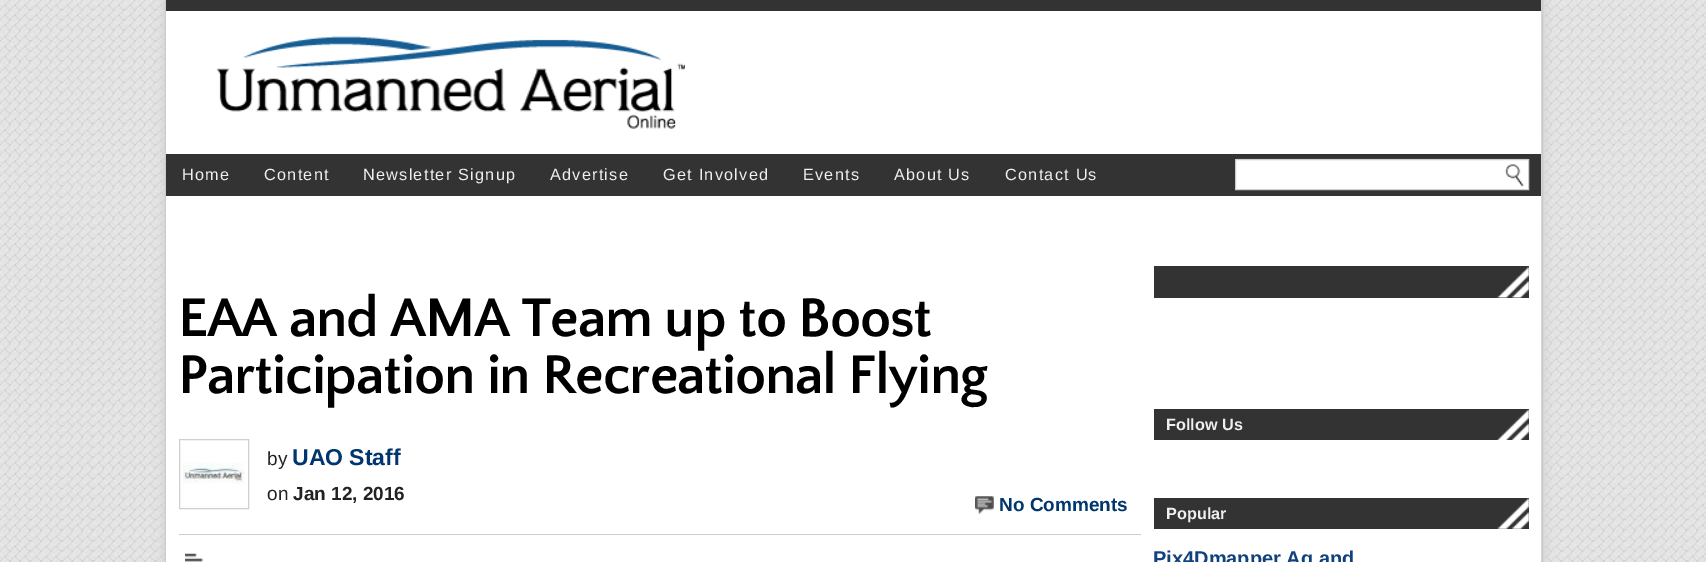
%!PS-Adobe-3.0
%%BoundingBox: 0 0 1706 562
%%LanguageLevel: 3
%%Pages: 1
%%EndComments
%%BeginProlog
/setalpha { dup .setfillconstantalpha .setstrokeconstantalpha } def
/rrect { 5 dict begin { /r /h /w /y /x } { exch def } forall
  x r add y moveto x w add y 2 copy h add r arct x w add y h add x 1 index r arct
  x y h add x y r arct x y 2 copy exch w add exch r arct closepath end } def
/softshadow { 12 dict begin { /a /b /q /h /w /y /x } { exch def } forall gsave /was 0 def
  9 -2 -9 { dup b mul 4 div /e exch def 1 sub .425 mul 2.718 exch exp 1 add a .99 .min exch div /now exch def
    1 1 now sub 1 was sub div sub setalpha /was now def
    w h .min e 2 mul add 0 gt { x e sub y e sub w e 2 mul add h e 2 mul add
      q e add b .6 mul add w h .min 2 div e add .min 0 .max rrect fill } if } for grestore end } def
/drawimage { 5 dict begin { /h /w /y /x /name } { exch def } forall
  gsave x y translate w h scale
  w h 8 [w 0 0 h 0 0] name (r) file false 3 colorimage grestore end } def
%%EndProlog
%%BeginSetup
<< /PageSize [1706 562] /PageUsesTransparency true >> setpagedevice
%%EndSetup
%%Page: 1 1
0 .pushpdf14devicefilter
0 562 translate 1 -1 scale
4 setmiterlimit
1 setgray
0 0 1706 562 rectfill
(images/1.raw) 0 0 1706 562 drawimage
0.808 setgray
165 -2 1378 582 0 6 1 softshadow
0.792 setgray
165.5 -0.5 1377 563 rectstroke
0.2 setgray
166 0 1375 11 rectfill
1 setgray
166 11 1375 143 rectfill
(images/2.raw) 216 36 469 93 drawimage
0.2 setgray
166 154 1375 42 rectfill
1 setgray
1236 160 292 29 rectfill
(images/3.raw) 1236 158 293 29 drawimage
0.808 setgray
1235.5 159.5 293 30 rectstroke
1 setgray
166 196 1375 366 rectfill
0.808 setgray
179 534 962 1 rectfill
0.812 setgray
179.5 439.5 69 69 rectstroke
(images/4.raw) 182 462 63 22 drawimage
(images/5.raw) 975 496 19 18 drawimage
(images/6.raw) 185 553 18 9 drawimage
0.2 setgray
1154 266 375 32 rectfill
(images/7.raw) 1497 266 32 32 drawimage
1154 409 375 31 rectfill
(images/8.raw) 1497 409 32 31 drawimage
1154 498 375 31 rectfill
(images/9.raw) 1497 498 32 31 drawimage
/LiberationSans-Regular [16.25 0 0 -16.25 0 0] selectfont
0.937 setgray
182 180 moveto 1.25 0 (Home) ashow
264 180 moveto 1.25 0 (Content) ashow
363 180 moveto 1.25 0 (Newsletter Signup) ashow
550 180 moveto 1.25 0 (Advertise) ashow
663 180 moveto 1.25 0 (Get Involved) ashow
803 180 moveto 1.25 0 (Events) ashow
894 180 moveto 1.25 0 (About Us) ashow
1005 180 moveto 1.25 0 (Contact Us) ashow
/QuattrocentoSans-Bold [57 0 0 -57 0 0] selectfont
0 setgray
178 336 moveto -1.25 0 (EAA and AMA Team up to Boost) ashow
178 393 moveto -1.25 0 (Participation in Recreational Flying) ashow
/LiberationSans-Regular [19 0 0 -19 0 0] selectfont
0.133 setgray
267 465 moveto (by) show
/LiberationSans-Bold [23 0 0 -23 0 0] selectfont
0 0.212 0.427 setrgbcolor
292 465 moveto (UAO Staff) show
/LiberationSans-Regular [19 0 0 -19 0 0] selectfont
0.133 setgray
267 500 moveto (on) show
/LiberationSans-Bold [19 0 0 -19 0 0] selectfont
293 500 moveto (Jan 12, 2016) show
0 0.212 0.427 setrgbcolor
999 511 moveto (No Comments) show
/LiberationSans-Bold [16.25 0 0 -16.25 0 0] selectfont
0.937 setgray
1166 430 moveto (Follow Us) show
1166 519 moveto (Popular) show
/LiberationSans-Bold [20 0 0 -20 0 0] selectfont
0.071 0.259 0.494 setrgbcolor
1153 565 moveto (Pix4Dmapper Ag and) show
.poppdf14devicefilter showpage
%%EOF
